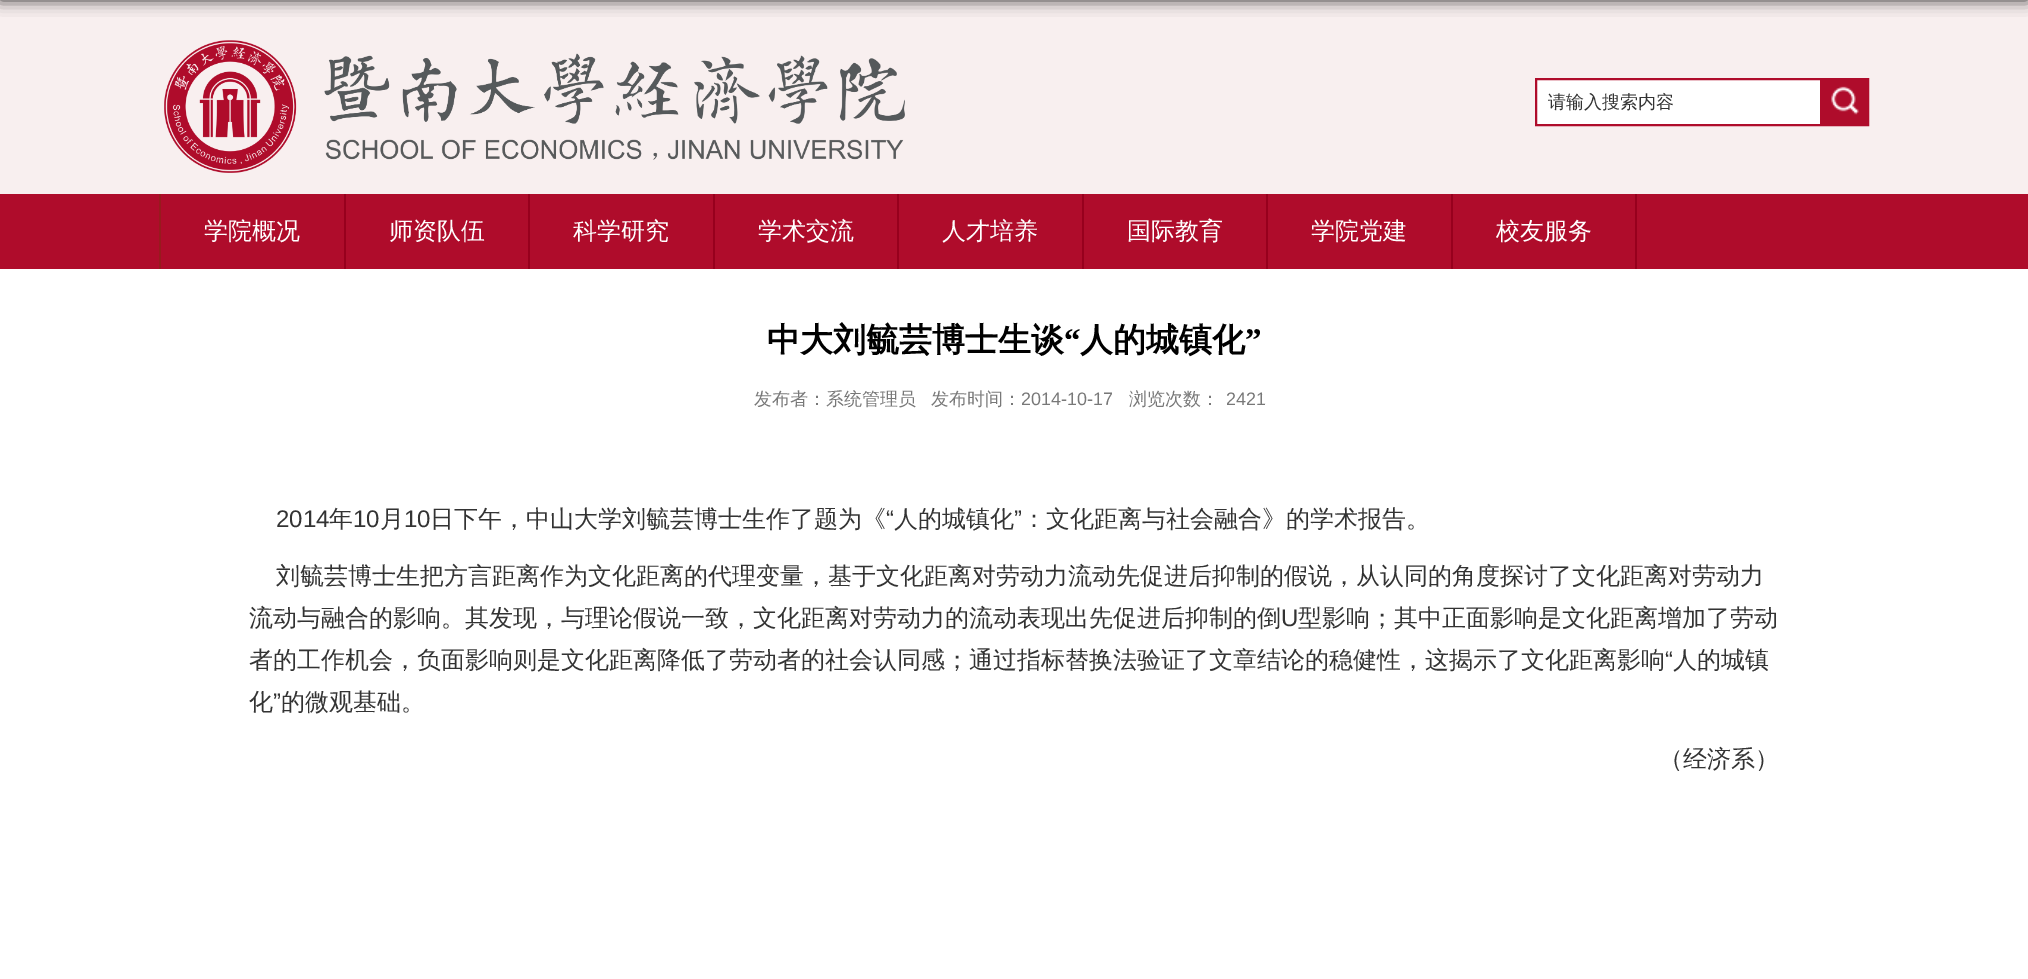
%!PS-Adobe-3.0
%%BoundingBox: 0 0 2028 979
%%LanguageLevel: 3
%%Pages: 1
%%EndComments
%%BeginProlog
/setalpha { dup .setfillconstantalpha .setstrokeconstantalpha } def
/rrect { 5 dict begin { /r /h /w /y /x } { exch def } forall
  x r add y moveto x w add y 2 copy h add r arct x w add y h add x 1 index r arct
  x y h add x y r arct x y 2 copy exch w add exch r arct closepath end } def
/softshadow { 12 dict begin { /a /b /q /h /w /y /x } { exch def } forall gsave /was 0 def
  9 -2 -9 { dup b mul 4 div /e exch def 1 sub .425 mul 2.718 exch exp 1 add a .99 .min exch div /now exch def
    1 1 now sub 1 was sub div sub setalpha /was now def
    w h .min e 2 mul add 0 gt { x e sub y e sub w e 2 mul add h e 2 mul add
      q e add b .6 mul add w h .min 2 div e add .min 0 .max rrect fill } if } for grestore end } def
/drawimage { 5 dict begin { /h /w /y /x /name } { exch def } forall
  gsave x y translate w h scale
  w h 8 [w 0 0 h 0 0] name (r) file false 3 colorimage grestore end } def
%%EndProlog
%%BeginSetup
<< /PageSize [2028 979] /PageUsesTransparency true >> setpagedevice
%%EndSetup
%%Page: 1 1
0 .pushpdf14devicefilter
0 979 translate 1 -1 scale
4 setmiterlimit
1 setgray
0 0 2028 979 rectfill
0.973 0.937 0.937 setrgbcolor
0 0 2028 194 rectfill
0 setgray
0 -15 2028 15 0 7.5 0.8 softshadow
(images/1.raw) 164 40 741 133 drawimage
1 setgray
1537 80 283 44 rectfill
0.686 0.047 0.169 setrgbcolor
2 setlinewidth
1536 79 332 46 rectstroke
1820 80 47 44 rectfill
(images/2.raw) 1831 86 28 29 drawimage
0 194 2028 75 rectfill
0.592 0 0.114 setrgbcolor
344 194 2 75 rectfill
0.592 0.106 0.114 setrgbcolor
159 194 2 75 rectfill
0.592 0 0.114 setrgbcolor
528 194 2 75 rectfill
713 194 2 75 rectfill
897 194 2 75 rectfill
1082 194 2 75 rectfill
1266 194 2 75 rectfill
1451 194 2 75 rectfill
1635 194 2 75 rectfill
/WenQuanYiZenHei-Medium [18 0 0 -18 0 0] selectfont
0.2 setgray
1548 108 moveto (请输入搜索内容) show
/WenQuanYiZenHei-Medium [24 0 0 -24 0 0] selectfont
1 setgray
204 239 moveto (学院概况) show
389 239 moveto (师资队伍) show
573 239 moveto (科学研究) show
758 239 moveto (学术交流) show
942 239 moveto (人才培养) show
1127 239 moveto (国际教育) show
1311 239 moveto (学院党建) show
1496 239 moveto (校友服务) show
/WenQuanYiZenHei-Bold [33 0 0 -33 0 0] selectfont
0 setgray
767 351 moveto (中大刘毓芸博士生谈) show
/LiberationSerif-Bold [33 0 0 -33 0 0] selectfont
1064 351 moveto (“) show
/WenQuanYiZenHei-Bold [33 0 0 -33 0 0] selectfont
1080 351 moveto (人的城镇化) show
/LiberationSerif-Bold [33 0 0 -33 0 0] selectfont
1245 351 moveto (”) show
/WenQuanYiZenHei-Medium [18 0 0 -18 0 0] selectfont
0.471 setgray
754 405 moveto (发布者：系统管理员) show
931 405 moveto (发布时间：) show
/LiberationSans-Regular [18 0 0 -18 0 0] selectfont
1021 405 moveto (2014-10-17) show
/WenQuanYiZenHei-Medium [18 0 0 -18 0 0] selectfont
1129 405 moveto (浏览次数：) show
/LiberationSans-Regular [18 0 0 -18 0 0] selectfont
1226 405 moveto (2421) show
/LiberationSans-Regular [24 0 0 -24 0 0] selectfont
0.2 setgray
276 527 moveto (2014) show
/WenQuanYiZenHei-Medium [24 0 0 -24 0 0] selectfont
329 527 moveto (年) show
/LiberationSans-Regular [24 0 0 -24 0 0] selectfont
353 527 moveto (10) show
/WenQuanYiZenHei-Medium [24 0 0 -24 0 0] selectfont
380 527 moveto (月) show
/LiberationSans-Regular [24 0 0 -24 0 0] selectfont
404 527 moveto (10) show
/WenQuanYiZenHei-Medium [24 0 0 -24 0 0] selectfont
430 527 moveto (日下午，中山大学刘毓芸博士生作了题为《) show
/LiberationSans-Regular [24 0 0 -24 0 0] selectfont
886 527 moveto (“) show
/WenQuanYiZenHei-Medium [24 0 0 -24 0 0] selectfont
894 527 moveto (人的城镇化) show
/LiberationSans-Regular [24 0 0 -24 0 0] selectfont
1014 527 moveto (”) show
/WenQuanYiZenHei-Medium [24 0 0 -24 0 0] selectfont
1022 527 moveto (：文化距离与社会融合》的学术报告。) show
276 584 moveto (刘毓芸博士生把方言距离作为文化距离的代理变量，基于文化距离对劳动力流动先促进后抑制的假说，从认同的角度探讨了文化距离对劳动力) show
249 626 moveto (流动与融合的影响。其发现，与理论假说一致，文化距离对劳动力的流动表现出先促进后抑制的倒) show
/LiberationSans-Regular [24 0 0 -24 0 0] selectfont
1281 626 moveto (U) show
/WenQuanYiZenHei-Medium [24 0 0 -24 0 0] selectfont
1298 626 moveto (型影响；其中正面影响是文化距离增加了劳动) show
249 668 moveto (者的工作机会，负面影响则是文化距离降低了劳动者的社会认同感；通过指标替换法验证了文章结论的稳健性，这揭示了文化距离影响) show
/LiberationSans-Regular [24 0 0 -24 0 0] selectfont
1665 668 moveto (“) show
/WenQuanYiZenHei-Medium [24 0 0 -24 0 0] selectfont
1673 668 moveto (人的城镇) show
249 710 moveto (化) show
/LiberationSans-Regular [24 0 0 -24 0 0] selectfont
273 710 moveto (”) show
/WenQuanYiZenHei-Medium [24 0 0 -24 0 0] selectfont
281 710 moveto (的微观基础。) show
1659 767 moveto (（经济系）) show
.poppdf14devicefilter showpage
%%EOF
